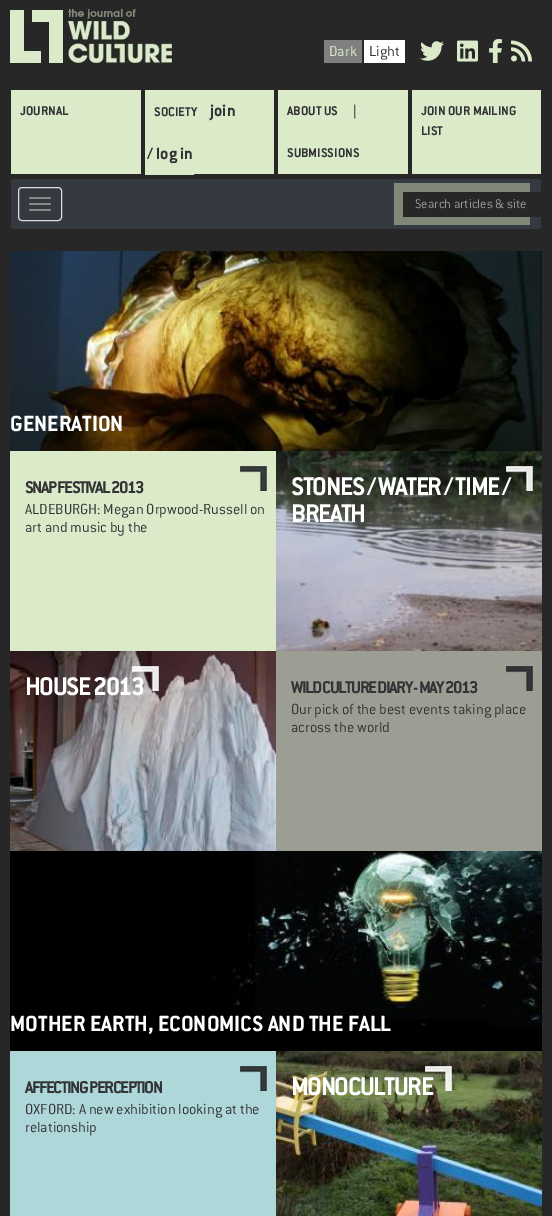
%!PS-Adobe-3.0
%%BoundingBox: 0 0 552 1216
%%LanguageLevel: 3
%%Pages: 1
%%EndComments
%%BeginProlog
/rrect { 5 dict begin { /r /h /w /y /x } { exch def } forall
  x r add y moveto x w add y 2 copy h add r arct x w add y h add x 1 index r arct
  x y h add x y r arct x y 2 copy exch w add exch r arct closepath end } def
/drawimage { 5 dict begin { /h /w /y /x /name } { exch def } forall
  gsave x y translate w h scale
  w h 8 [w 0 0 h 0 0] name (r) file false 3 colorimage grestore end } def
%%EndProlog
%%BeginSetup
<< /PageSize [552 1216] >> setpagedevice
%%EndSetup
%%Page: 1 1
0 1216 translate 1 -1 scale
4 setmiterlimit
0.153 setgray
0 0 552 1216 rectfill
(images/1.raw) 10 8 165 58 drawimage
0.502 setgray
324 40 38 23 rectfill
1 setgray
364 40 41 23 rectfill
(images/2.raw) 420 41 24 20 drawimage
(images/3.raw) 457 40 21 22 drawimage
(images/4.raw) 489 39 13 24 drawimage
(images/5.raw) 511 40 21 22 drawimage
0.859 0.922 0.788 setrgbcolor
11 90 130 84 rectfill
145 90 129 84 rectfill
145 174 49 1 rectfill
278 90 130 84 rectfill
412 90 129 84 rectfill
0.204 0.227 0.251 setrgbcolor
11 179 530 50 3 rrect fill
0.867 setgray
18.5 187.5 43 33 3.5 rrect stroke
0.533 setgray
29 197 22 2 1 rrect fill
29 203 22 2 1 rrect fill
29 209 22 2 1 rrect fill
0.502 0.533 0.471 setrgbcolor
394 183 136 42 rectfill
0.153 setgray
403 193 138 24 rectfill
0.141 setgray
403 192 149 1 rectfill
(images/6.raw) 10 251 532 200 drawimage
0.859 0.922 0.788 setrgbcolor
10 451 266 200 rectfill
(images/7.raw) 240 466 27 25 drawimage
(images/8.raw) 276 451 266 200 drawimage
(images/9.raw) 506 466 27 25 drawimage
(images/10.raw) 10 651 266 200 drawimage
(images/11.raw) 132 666 27 25 drawimage
0.612 0.62 0.58 setrgbcolor
276 651 266 200 rectfill
(images/12.raw) 506 666 27 25 drawimage
(images/13.raw) 10 851 532 200 drawimage
0.682 0.843 0.851 setrgbcolor
10 1051 266 165 rectfill
(images/14.raw) 240 1066 27 25 drawimage
(images/15.raw) 276 1051 266 165 drawimage
(images/16.raw) 425 1066 27 25 drawimage
/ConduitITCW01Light-Light [16 0 0 -16 0 0] selectfont
0.859 0.922 0.788 setrgbcolor
329 56 moveto (Dark) show
0.2 0.2 0.208 setrgbcolor
369 56 moveto (Light) show
/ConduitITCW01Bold-Bold [14 0 0 -14 0 0] selectfont
20 115 moveto (JOURNAL) show
154 116 moveto (SOCIETY) show
/ConduitITCW01Bold-Bold [18 0 0 -18 0 0] selectfont
210 116 moveto (join) show
147 159 moveto (/ log in) show
/ConduitITCW01Bold-Bold [14 0 0 -14 0 0] selectfont
287 115 moveto (ABOUT US) show
353 115 moveto (|) show
287 157 moveto (SUBMISSIONS) show
421 115 moveto (JOIN OUR MAILING) show
421 135 moveto (LIST) show
/ConduitITCW01Light-Light [14 0 0 -14 0 0] selectfont
0.6 setgray
415 208 moveto (Search articles & site) show
/ConduitITCW01Bold-Bold [24 0 0 -24 0 0] selectfont
1 setgray
10 431 moveto (GENERATION) show
/ConduitITCW01Bold-Bold [18.75 0 0 -18.75 0 0] selectfont
0.2 0.2 0.208 setrgbcolor
25 493 moveto -1.5 0 (SNAP FESTIVAL 2013) ashow
/ConduitITCW01Light-Light [16 0 0 -16 0 0] selectfont
25 514 moveto (ALDEBURGH: Megan Orpwood-Russell on) show
25 532 moveto (art and music by the) show
/ConduitITCW01Bold-Bold [28 0 0 -28 0 0] selectfont
1 setgray
291 495 moveto -1.5 0 (STONES / WATER / TIME /) ashow
291 522 moveto -1.5 0 (BREATH) ashow
25 695 moveto -1.5 0 (HOUSE 2013) ashow
/ConduitITCW01Bold-Bold [18.75 0 0 -18.75 0 0] selectfont
0.2 0.2 0.208 setrgbcolor
291 693 moveto -1.5 0 (WILD CULTURE DIARY - MAY 2013) ashow
/ConduitITCW01Light-Light [16 0 0 -16 0 0] selectfont
291 714 moveto (Our pick of the best events taking place) show
291 732 moveto (across the world) show
/ConduitITCW01Bold-Bold [24 0 0 -24 0 0] selectfont
1 setgray
10 1031 moveto (MOTHER EARTH, ECONOMICS AND THE FALL) show
/ConduitITCW01Bold-Bold [18.75 0 0 -18.75 0 0] selectfont
0.2 0.2 0.208 setrgbcolor
25 1093 moveto -1.5 0 (AFFECTING PERCEPTION) ashow
/ConduitITCW01Light-Light [16 0 0 -16 0 0] selectfont
25 1114 moveto (OXFORD: A new exhibition looking at the) show
25 1132 moveto (relationship) show
/ConduitITCW01Bold-Bold [28 0 0 -28 0 0] selectfont
1 setgray
291 1095 moveto -1.5 0 (MONOCULTURE) ashow
showpage
%%EOF
